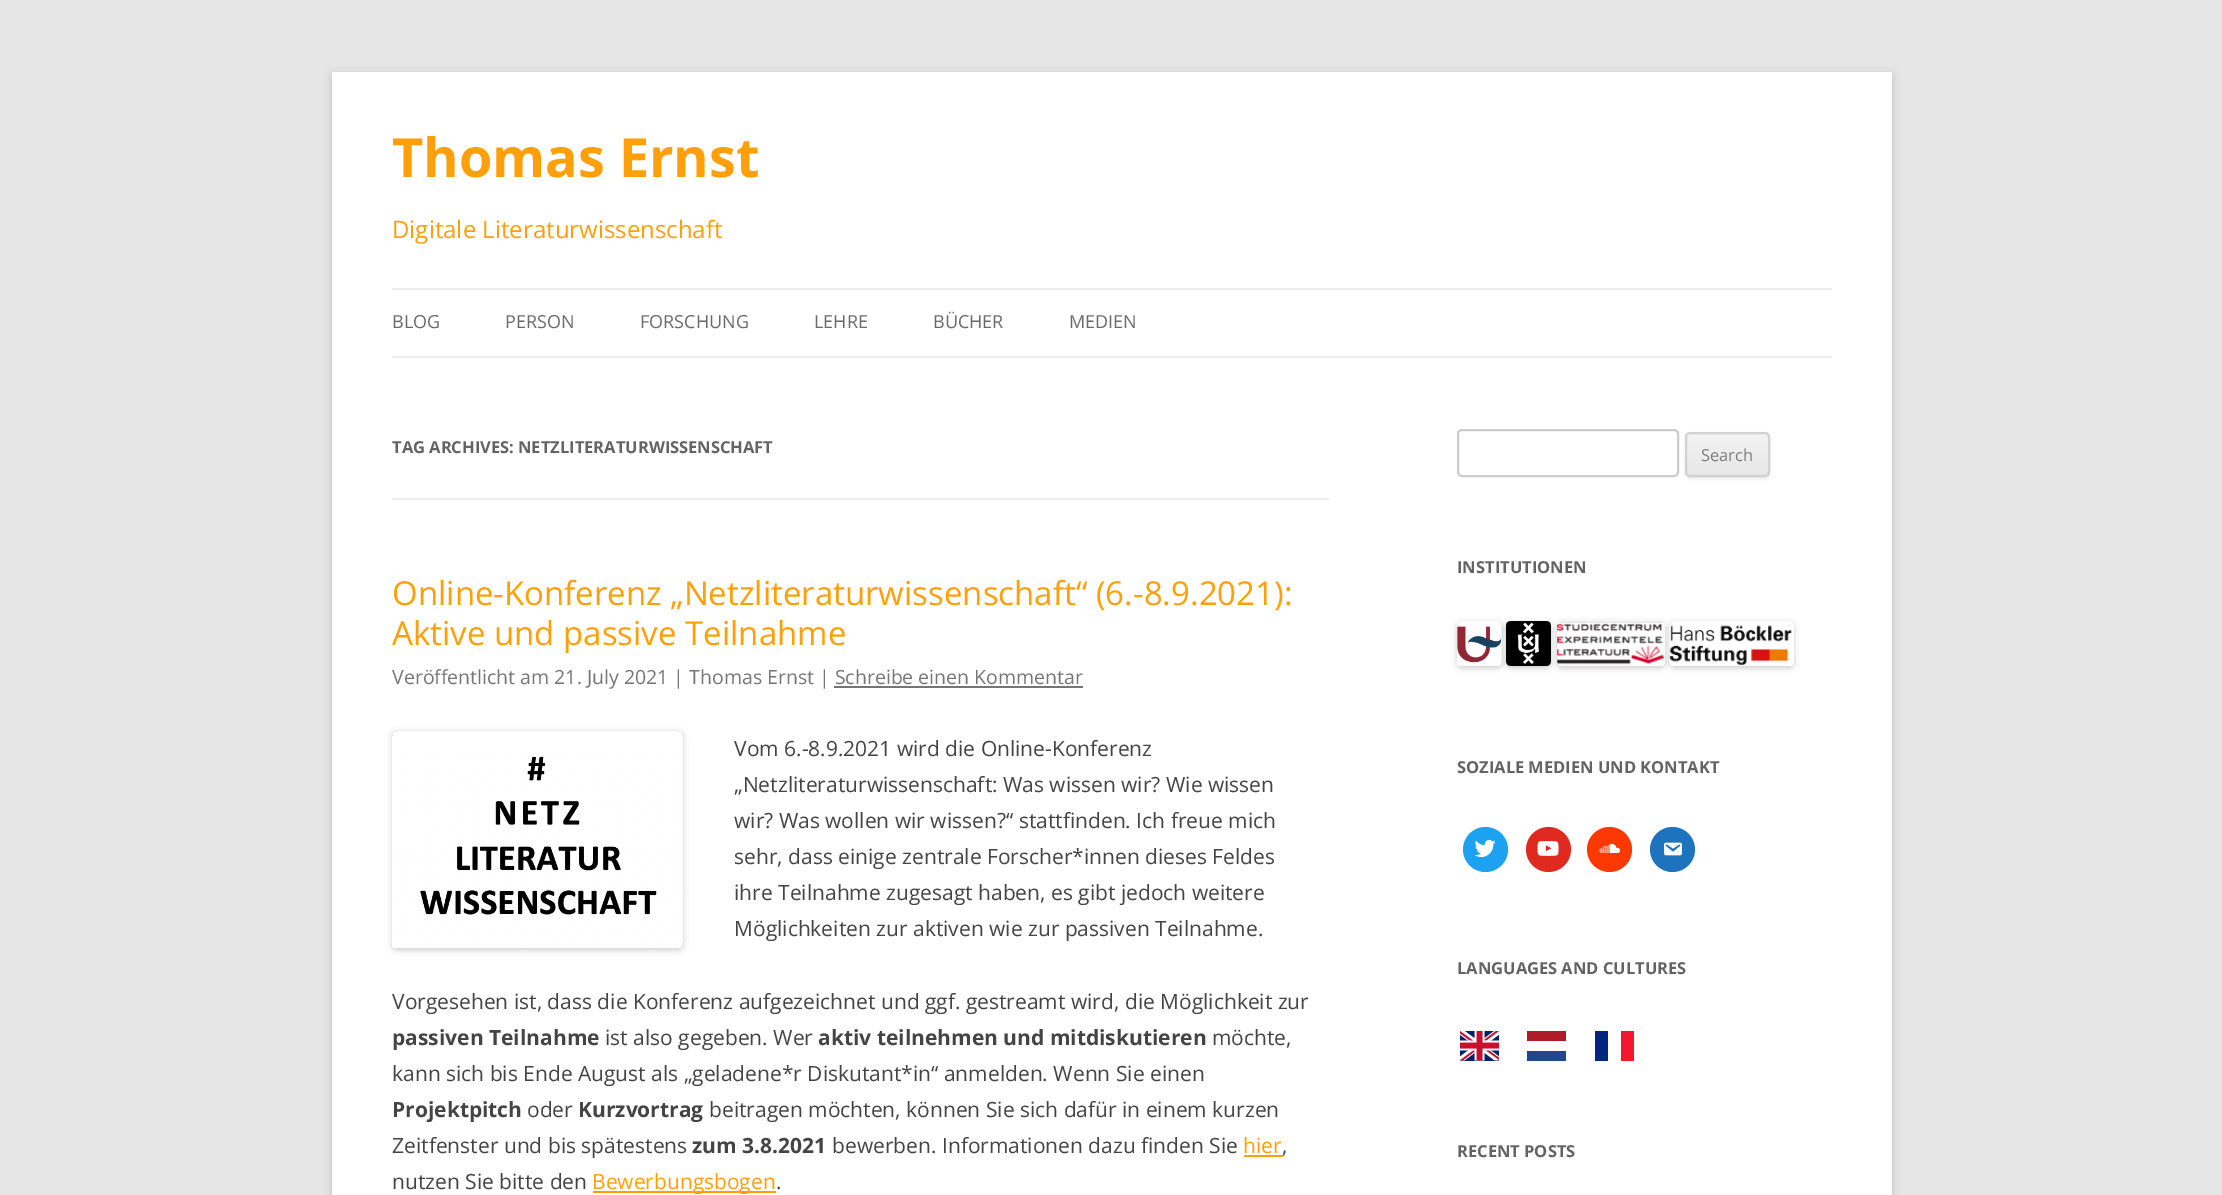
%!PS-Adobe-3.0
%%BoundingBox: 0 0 2222 1195
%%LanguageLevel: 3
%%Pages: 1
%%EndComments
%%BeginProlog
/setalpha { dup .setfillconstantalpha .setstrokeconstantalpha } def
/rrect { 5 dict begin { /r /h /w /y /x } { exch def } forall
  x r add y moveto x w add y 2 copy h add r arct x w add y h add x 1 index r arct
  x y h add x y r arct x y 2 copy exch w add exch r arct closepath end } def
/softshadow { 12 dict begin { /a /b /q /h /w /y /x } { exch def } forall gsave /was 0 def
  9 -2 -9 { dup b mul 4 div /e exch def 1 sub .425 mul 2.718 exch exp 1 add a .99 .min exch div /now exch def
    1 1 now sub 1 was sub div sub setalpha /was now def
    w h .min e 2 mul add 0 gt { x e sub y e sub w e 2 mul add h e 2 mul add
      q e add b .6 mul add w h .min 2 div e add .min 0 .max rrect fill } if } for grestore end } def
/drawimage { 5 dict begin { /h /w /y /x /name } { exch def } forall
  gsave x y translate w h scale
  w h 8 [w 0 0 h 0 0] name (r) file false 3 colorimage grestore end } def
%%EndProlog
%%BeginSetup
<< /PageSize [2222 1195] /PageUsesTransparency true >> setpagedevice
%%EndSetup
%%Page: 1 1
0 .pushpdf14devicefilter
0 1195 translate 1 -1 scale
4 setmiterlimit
0.902 setgray
0 0 2222 1195 rectfill
0.392 setgray
332 75 1560 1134 0 4.5 0.3 softshadow
1 setgray
332 72 1560 1123 rectfill
0.929 setgray
392 288 1440 2 rectfill
392 356 1440 2 rectfill
392 498 937 2 rectfill
0.459 setgray
834 686 249 2 rectfill
gsave
newpath 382 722 moveto 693 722 lineto 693 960 lineto 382 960 lineto closepath 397 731 moveto 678 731 lineto 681 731 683 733 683 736 curveto 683 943 lineto 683 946 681 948 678 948 curveto 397 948 lineto 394 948 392 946 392 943 curveto 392 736 lineto 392 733 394 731 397 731 curveto closepath eoclip newpath
0 setgray
392 732 291 218 5 3 0.2 softshadow
grestore
(images/1.raw) 392 756 290 192 drawimage
1 0.624 0.035 setrgbcolor
1244 1155 39 2 rectfill
593 1191 183 2 rectfill
0.8 setgray
2 setlinewidth
1458 430 220 46 4 rrect stroke
0.251 setgray
1685 434 85 45 5 1.5 0.1 softshadow
gsave
1685 432 85 45 5 rrect clip newpath
gsave newpath 1685 434 moveto 1770 434 lineto 1770 476 lineto 1685 476 lineto closepath clip newpath
<< /ShadingType 2 /ColorSpace /DeviceRGB /Coords [1727 434 1727 476] /Extend [true true] /Function << /FunctionType 2 /Domain [0 1] /C0 [0.957 0.957 0.957] /C1 [0.902 0.902 0.902] /N 1 >> >> shfill grestore
grestore
0.824 setgray
1686 433 83 43 4 rrect stroke
gsave
newpath 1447 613 moveto 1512 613 lineto 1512 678 lineto 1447 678 lineto closepath 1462 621 moveto 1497 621 lineto 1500 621 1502 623 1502 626 curveto 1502 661 lineto 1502 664 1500 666 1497 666 curveto 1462 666 lineto 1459 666 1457 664 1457 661 curveto 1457 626 lineto 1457 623 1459 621 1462 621 curveto closepath eoclip newpath
0 setgray
1457 623 45 45 5 3 0.2 softshadow
grestore
(images/2.raw) 1457 626 45 40 drawimage
0 setgray
1506 623 45 45 5 3 0.2 softshadow
(images/3.raw) 1506 621 45 45 drawimage
1557 623 108 45 5 3 0.2 softshadow
(images/4.raw) 1557 623 108 43 drawimage
gsave
newpath 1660 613 moveto 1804 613 lineto 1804 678 lineto 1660 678 lineto closepath 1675 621 moveto 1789 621 lineto 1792 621 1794 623 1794 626 curveto 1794 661 lineto 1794 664 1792 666 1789 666 curveto 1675 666 lineto 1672 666 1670 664 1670 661 curveto 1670 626 lineto 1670 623 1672 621 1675 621 curveto closepath eoclip newpath
1670 623 124 45 5 3 0.2 softshadow
grestore
(images/5.raw) 1669 625 125 41 drawimage
0.114 0.631 0.949 setrgbcolor
newpath 1485.5 849.5 22.5 0 360 arc closepath fill
(images/6.raw) 1474 839 22 18 drawimage
0.878 0.165 0.125 setrgbcolor
newpath 1548.5 849.5 22.5 0 360 arc closepath fill
(images/7.raw) 1537 841 22 15 drawimage
0.996 0.22 0.004 setrgbcolor
newpath 1609.5 849.5 22.5 0 360 arc closepath fill
(images/8.raw) 1599 843 21 11 drawimage
0.118 0.451 0.745 setrgbcolor
newpath 1672.5 849.5 22.5 0 360 arc closepath fill
(images/9.raw) 1664 842 18 14 drawimage
(images/10.raw) 1460 1031 39 30 drawimage
0.129 0.275 0.545 setrgbcolor
1527 1051 39 10 rectfill
0.682 0.11 0.157 setrgbcolor
1527 1031 39 10 rectfill
0 0.149 0.498 setrgbcolor
1595 1031 13 30 rectfill
0.953 0.094 0.188 setrgbcolor
1621 1031 13 30 rectfill
/OpenSans-Bold [54 0 0 -54 0 0] selectfont
1 0.624 0.035 setrgbcolor
392 177 moveto (Thomas Ernst) show
/OpenSans-Regular [24 0 0 -24 0 0] selectfont
392 238 moveto (Digitale Literaturwissenschaft) show
/OpenSans-Regular [18 0 0 -18 0 0] selectfont
0.416 setgray
392 328 moveto (BLOG) show
505 328 moveto (PERSON) show
640 328 moveto (FORSCHUNG) show
814 328 moveto (LEHRE) show
933 328 moveto (BÜCHER) show
1069 328 moveto (MEDIEN) show
/OpenSans-Bold [16.5 0 0 -16.5 0 0] selectfont
0.388 setgray
392 453 moveto (TAG ARCHIVES: NETZLITERATURWISSENSCHAFT) show
/OpenSans-Regular [33 0 0 -33 0 0] selectfont
1 0.624 0.035 setrgbcolor
392 605 moveto (Online-Konferenz „Netzliteraturwissenschaft“ \(6.-8.9.2021\):) show
392 645 moveto (Aktive und passive Teilnahme) show
/OpenSans-Regular [19.5 0 0 -19.5 0 0] selectfont
0.459 setgray
392 684 moveto (Veröffentlicht am 21. July 2021 | Thomas Ernst | Schreibe einen Kommentar) show
/OpenSans-Regular [21 0 0 -21 0 0] selectfont
0.267 setgray
734 756 moveto (Vom 6.-8.9.2021 wird die Online-Konferenz) show
734 792 moveto („Netzliteraturwissenschaft: Was wissen wir? Wie wissen) show
734 828 moveto (wir? Was wollen wir wissen?“ stattfinden. Ich freue mich) show
734 864 moveto (sehr, dass einige zentrale Forscher*innen dieses Feldes) show
734 900 moveto (ihre Teilnahme zugesagt haben, es gibt jedoch weitere) show
734 936 moveto (Möglichkeiten zur aktiven wie zur passiven Teilnahme.) show
392 1009 moveto (Vorgesehen ist, dass die Konferenz aufgezeichnet und ggf. gestreamt wird, die Möglichkeit zur) show
/OpenSans-Bold [21 0 0 -21 0 0] selectfont
392 1045 moveto (passiven Teilnahme) show
/OpenSans-Regular [21 0 0 -21 0 0] selectfont
605 1045 moveto (ist also gegeben. Wer) show
/OpenSans-Bold [21 0 0 -21 0 0] selectfont
818 1045 moveto (aktiv teilnehmen und mitdiskutieren) show
/OpenSans-Regular [21 0 0 -21 0 0] selectfont
1212 1045 moveto (möchte,) show
392 1081 moveto (kann sich bis Ende August als „geladene*r Diskutant*in“ anmelden. Wenn Sie einen) show
/OpenSans-Bold [21 0 0 -21 0 0] selectfont
392 1117 moveto (Projektpitch) show
/OpenSans-Regular [21 0 0 -21 0 0] selectfont
527 1117 moveto (oder) show
/OpenSans-Bold [21 0 0 -21 0 0] selectfont
578 1117 moveto (Kurzvortrag) show
/OpenSans-Regular [21 0 0 -21 0 0] selectfont
709 1117 moveto (beitragen möchten, können Sie sich dafür in einem kurzen) show
392 1153 moveto (Zeitfenster und bis spätestens) show
/OpenSans-Bold [21 0 0 -21 0 0] selectfont
692 1153 moveto (zum 3.8.2021) show
/OpenSans-Regular [21 0 0 -21 0 0] selectfont
832 1153 moveto (bewerben. Informationen dazu finden Sie) show
1 0.624 0.035 setrgbcolor
1243 1153 moveto (hier) show
0.267 setgray
1282 1153 moveto (,) show
392 1189 moveto (nutzen Sie bitte den) show
1 0.624 0.035 setrgbcolor
592 1189 moveto (Bewerbungsbogen) show
0.267 setgray
776 1189 moveto (.) show
/OpenSans-Regular [16.5 0 0 -16.5 0 0] selectfont
0.486 setgray
1701 461 moveto (Search) show
/OpenSans-Bold [16.5 0 0 -16.5 0 0] selectfont
0.388 setgray
1457 573 moveto (INSTITUTIONEN) show
1457 773 moveto (SOZIALE MEDIEN UND KONTAKT) show
1457 974 moveto (LANGUAGES AND CULTURES) show
1457 1157 moveto (RECENT POSTS) show
.poppdf14devicefilter showpage
%%EOF
